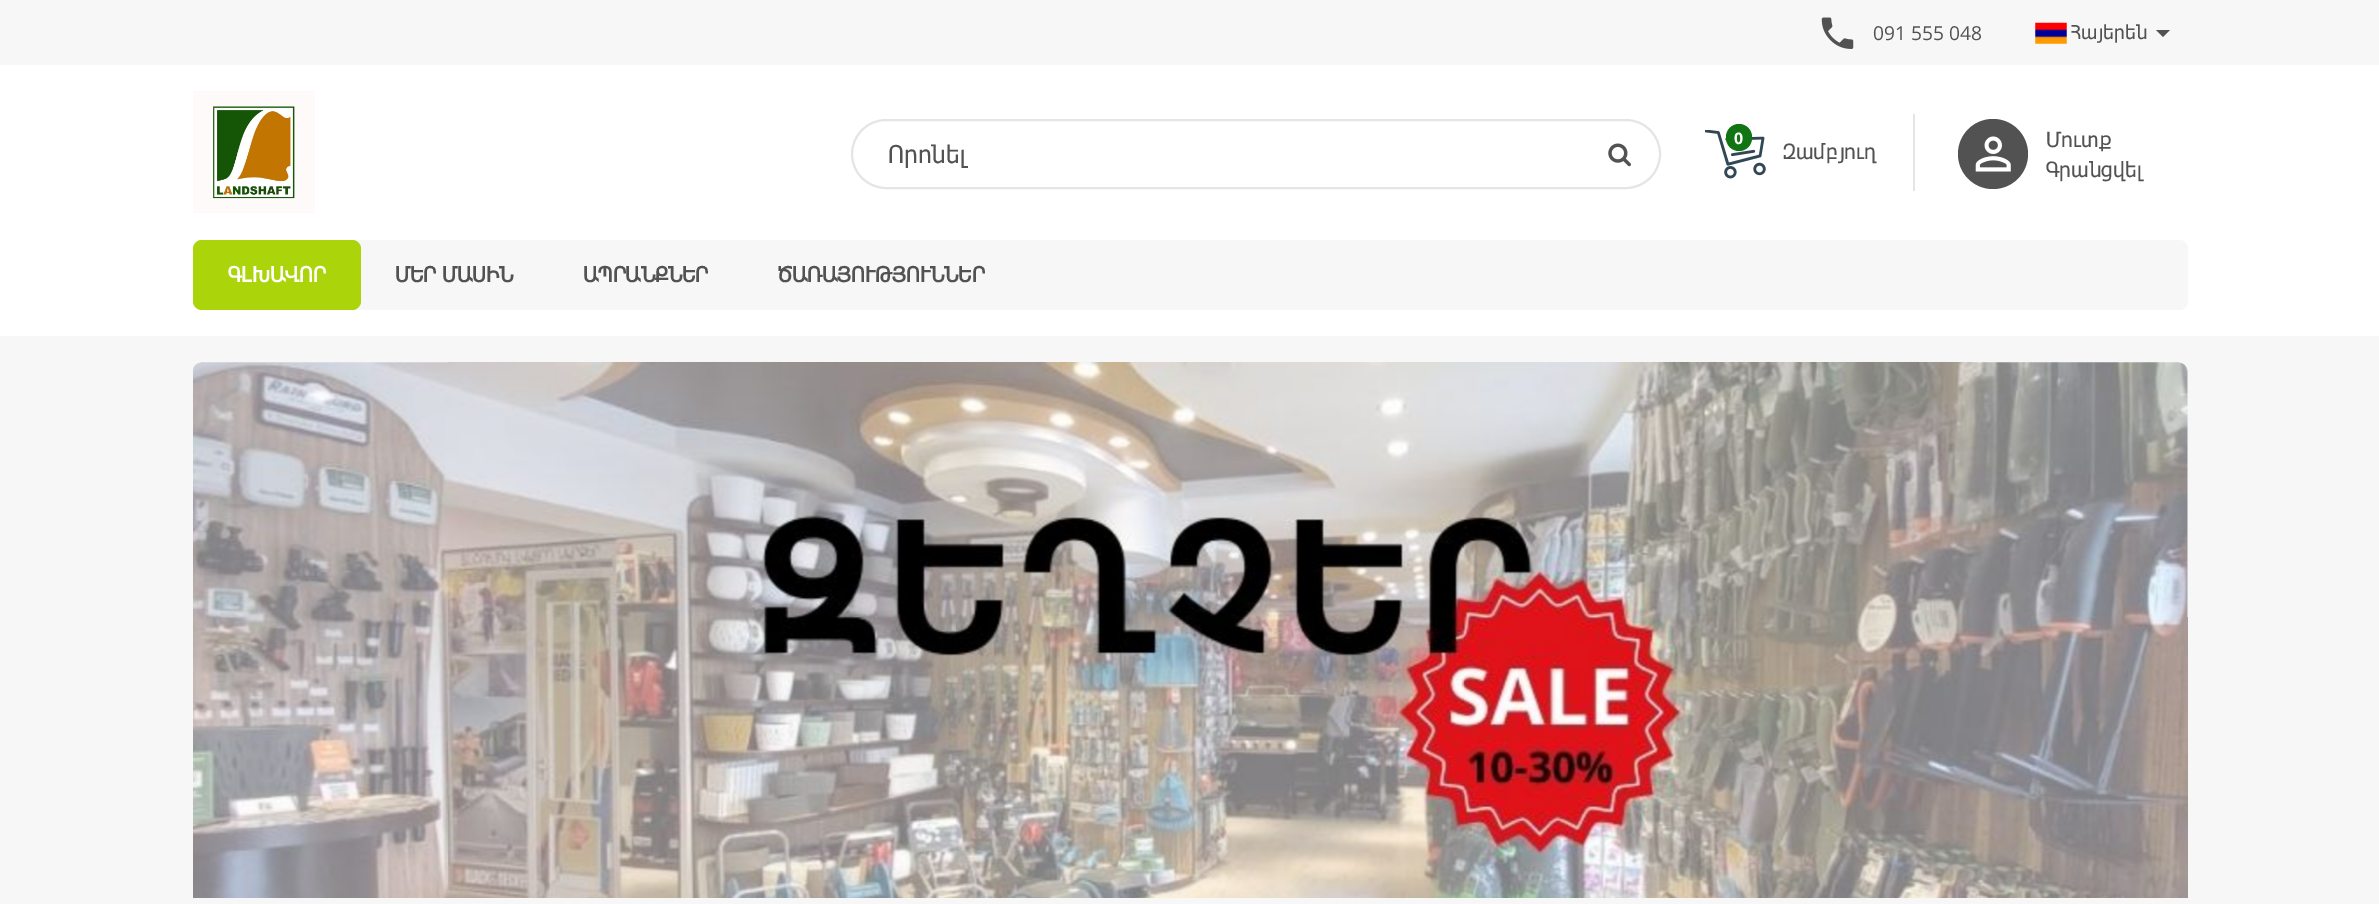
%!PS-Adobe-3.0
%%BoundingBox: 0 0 2379 904
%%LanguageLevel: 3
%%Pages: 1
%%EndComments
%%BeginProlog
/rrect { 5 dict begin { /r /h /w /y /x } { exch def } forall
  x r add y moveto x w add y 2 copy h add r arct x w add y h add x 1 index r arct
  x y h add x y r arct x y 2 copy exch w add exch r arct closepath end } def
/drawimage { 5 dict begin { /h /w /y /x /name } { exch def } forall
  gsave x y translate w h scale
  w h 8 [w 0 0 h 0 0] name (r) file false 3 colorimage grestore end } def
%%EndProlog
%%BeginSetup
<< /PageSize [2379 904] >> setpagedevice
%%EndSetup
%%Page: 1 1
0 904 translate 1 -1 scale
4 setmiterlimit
0.969 setgray
0 0 2379 904 rectfill
(images/1.raw) 1821 17 33 32 drawimage
(images/2.raw) 2035 22 32 22 drawimage
0.322 setgray
newpath 2156 30 moveto 2170 30 lineto 2163 37 lineto closepath fill
1 setgray
0 65 2379 271 rectfill
(images/3.raw) 193 91 122 122 drawimage
0.898 setgray
2 setlinewidth
852 120 808 68 34 rrect stroke
(images/4.raw) 1608 143 23 24 drawimage
1913 114 2 77 rectfill
(images/5.raw) 1705 130 61 49 drawimage
0.063 0.459 0.071 setrgbcolor
1726 124 26 27 13 rrect fill
0.322 setgray
newpath 1993 154 35 0 360 arc closepath fill
(images/6.raw) 1975 136 36 36 drawimage
0.969 setgray
193 240 1995 70 9 rrect fill
0.675 0.831 0.043 setrgbcolor
193 240 168 70 9 rrect fill
(images/7.raw) 193 362 1995 536 drawimage
/OpenSans-Regular [19.25 0 0 -19.25 0 0] selectfont
0.322 setgray
1873 40 moveto (091 555 048) show
/Tahoma-Regular [19.25 0 0 -19.25 0 0] selectfont
2071 39 moveto (Հայերեն) show
/Tahoma-Regular [24.5 0 0 -24.5 0 0] selectfont
888 163 moveto (Որոնել) show
/OpenSans-Bold [16 0 0 -16 0 0] selectfont
1 setgray
1734 144 moveto (0) show
/Tahoma-Regular [21 0 0 -21 0 0] selectfont
0.322 setgray
1783 159 moveto (Զամբյուղ) show
2046 147 moveto (Մուտք) show
2046 177 moveto (Գրանցվել) show
/Tahoma-Bold [21 0 0 -21 0 0] selectfont
1 setgray
228 282 moveto (ԳԼԽԱՎՈՐ) show
0.322 setgray
395 282 moveto -1 0 32 (ՄԵՐ ՄԱՍԻՆ) widthshow
583 282 moveto (ԱՊՐԱՆՔՆԵՐ) show
778 282 moveto (ԾԱՌԱՅՈՒԹՅՈՒՆՆԵՐ) show
showpage
%%EOF
